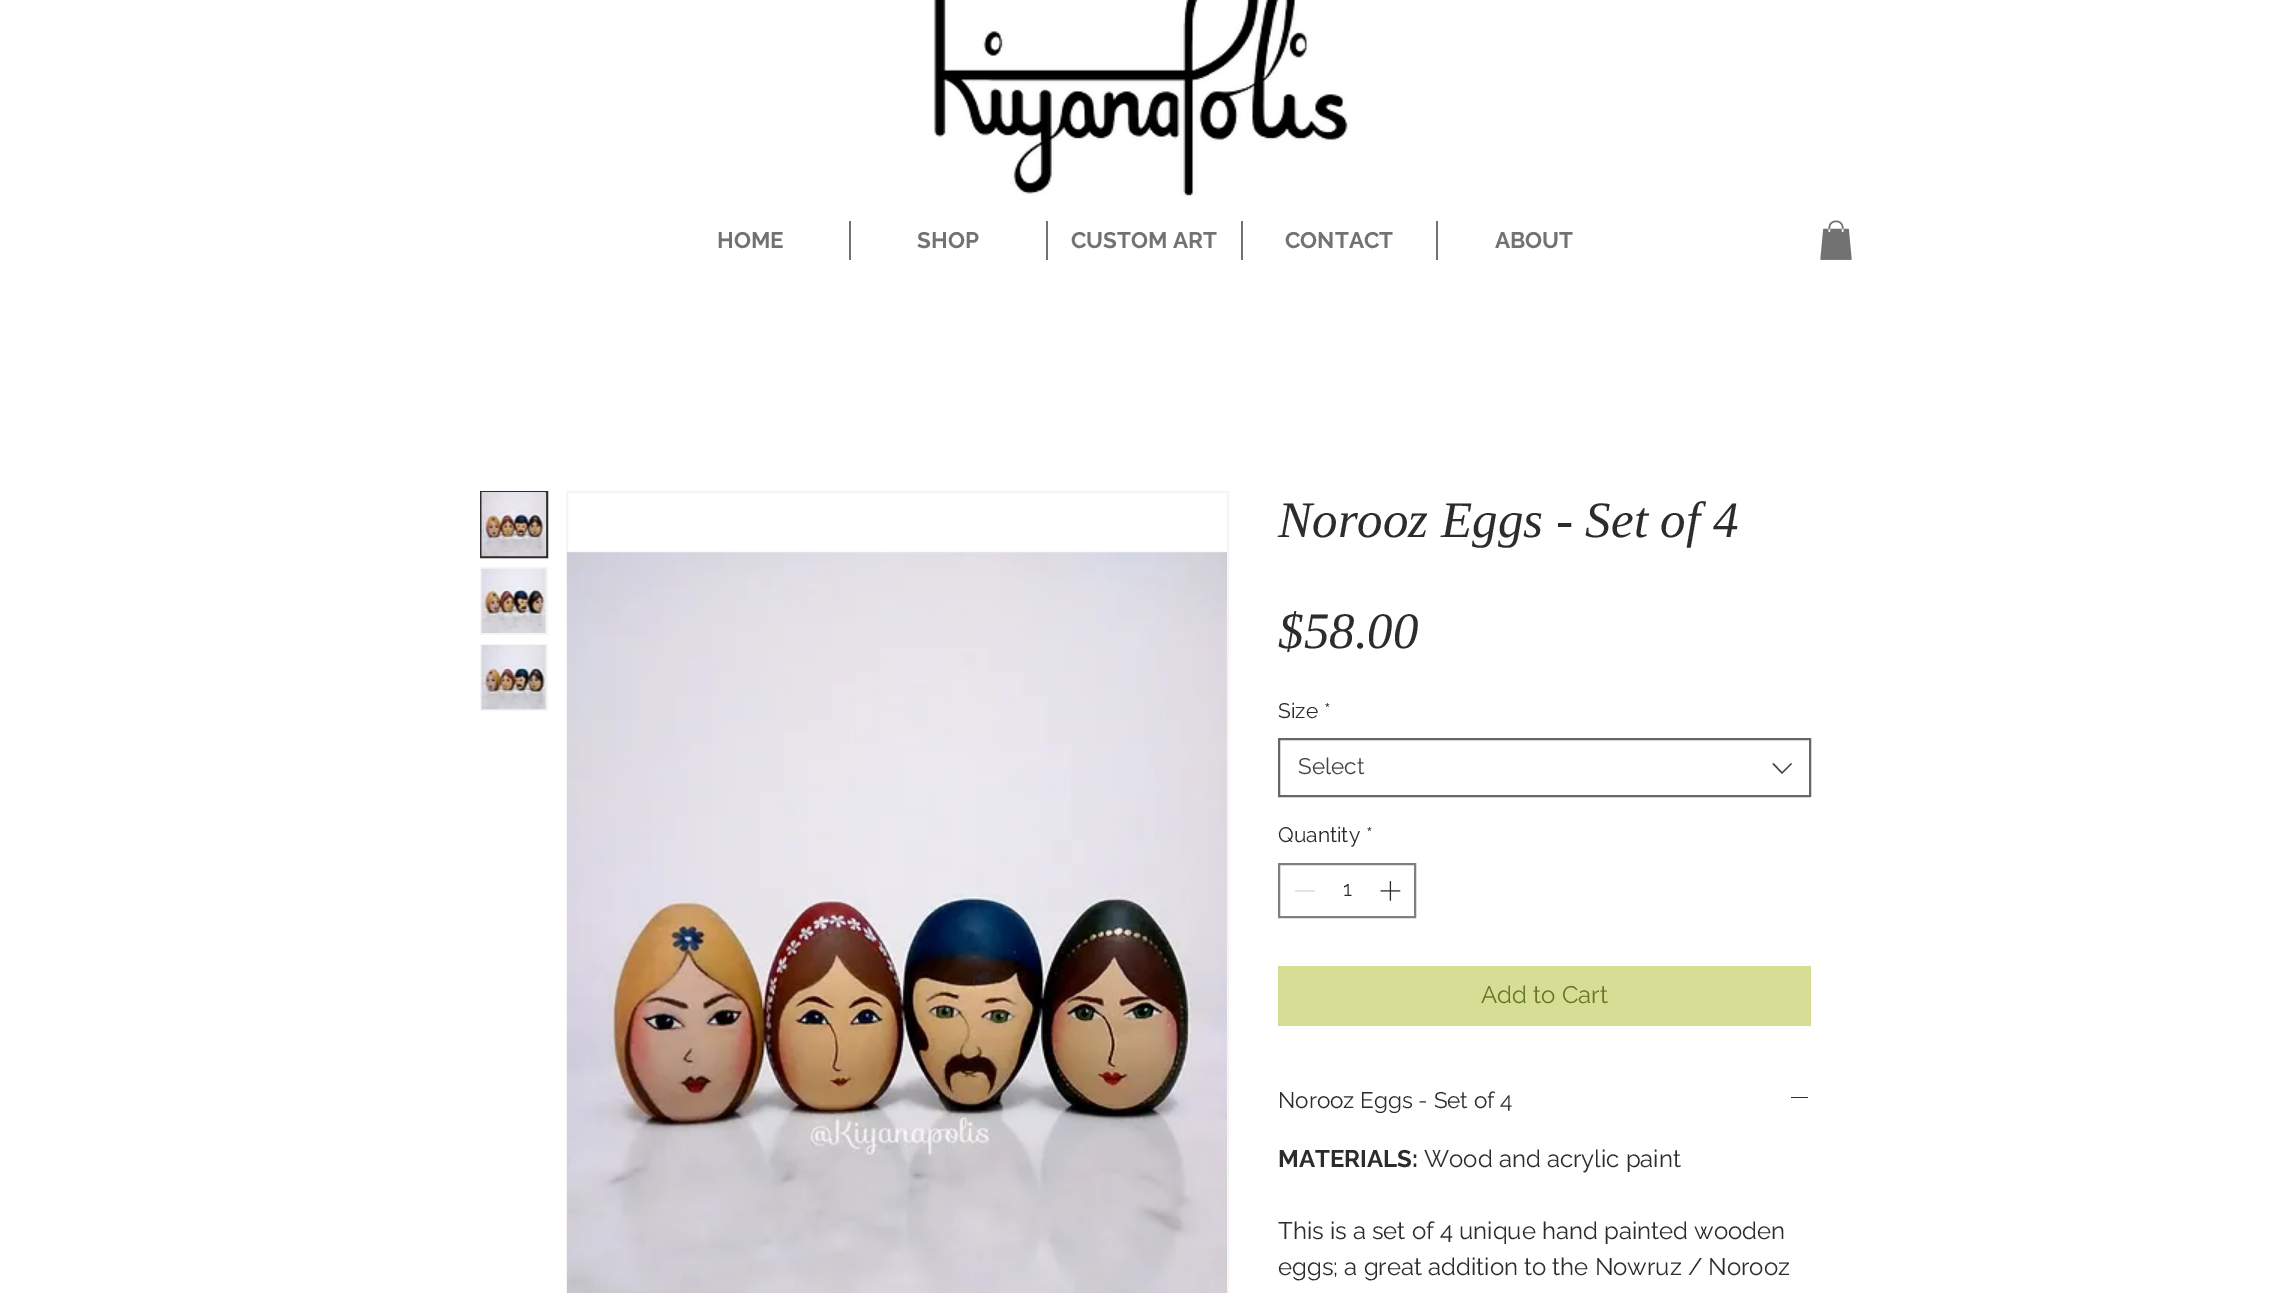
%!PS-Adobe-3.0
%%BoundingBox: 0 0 2285 1293
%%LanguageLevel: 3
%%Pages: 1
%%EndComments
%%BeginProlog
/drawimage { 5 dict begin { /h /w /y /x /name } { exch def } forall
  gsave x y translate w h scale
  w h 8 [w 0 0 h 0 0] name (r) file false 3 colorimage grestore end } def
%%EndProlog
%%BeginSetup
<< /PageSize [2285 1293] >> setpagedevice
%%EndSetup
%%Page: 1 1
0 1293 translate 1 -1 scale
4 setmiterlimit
1 setgray
0 0 2285 1293 rectfill
(images/1.raw) 932 0 418 196 drawimage
0.447 setgray
849 221 2 39 rectfill
1046 221 2 39 rectfill
1241 221 2 39 rectfill
1436 221 2 39 rectfill
(images/2.raw) 1820 220 32 40 drawimage
0.961 setgray
545 493 1 63 rectfill
0.173 0.173 0.169 setrgbcolor
2 setlinewidth
481 492 66 65 rectstroke
(images/3.raw) 481 492 66 65 drawimage
0.961 setgray
480 567 68 68 rectfill
(images/4.raw) 481 568 65 65 drawimage
480 644 68 67 rectfill
(images/5.raw) 481 645 66 65 drawimage
567 492 661 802 rectstroke
(images/6.raw) 567 551 660 742 drawimage
0.4 setgray
1279 739 531 57 rectstroke
0.267 setgray
newpath 1791 763 moveto 1792 764 lineto 1782 774 lineto 1772.5 764 lineto 1773.5 763 lineto 1782 772 lineto closepath eofill
0.502 setgray
1279 864 136 53 rectstroke
0.89 setgray
1295 890 20 2 rectfill
(images/7.raw) 1380 881 21 20 drawimage
0.847 0.867 0.588 setrgbcolor
1278 966 533 60 rectfill
0.173 0.173 0.169 setrgbcolor
1791 1097 17 1 rectfill
/Raleway-Bold [22.5 0 0 -22.5 0 0] selectfont
0.447 setgray
717 248 moveto (HOME) show
917 248 moveto (SHOP) show
1071 248 moveto (CUSTOM ART) show
1285 248 moveto (CONTACT) show
1495 248 moveto (ABOUT) show
/LiberationSerif-Italic [51 0 0 -51 0 0] selectfont
0.173 0.173 0.169 setrgbcolor
1278 537 moveto (Norooz Eggs - Set of 4) show
1278 648 moveto ($58.00) show
/Raleway-Regular [21 0 0 -21 0 0] selectfont
1278 718 moveto (Size) show
1324 718 moveto (*) show
/Raleway-Regular [22.5 0 0 -22.5 0 0] selectfont
0.267 setgray
1298 774 moveto (Select) show
/Raleway-Regular [21 0 0 -21 0 0] selectfont
0.173 0.173 0.169 setrgbcolor
1278 842 moveto (Quantity) show
1366 842 moveto (*) show
1343 896 moveto (1) show
/Raleway-Regular [24 0 0 -24 0 0] selectfont
0.388 0.471 0.137 setrgbcolor
1481 1003 moveto (Add to Cart) show
/Raleway-Regular [22.5 0 0 -22.5 0 0] selectfont
0.173 0.173 0.169 setrgbcolor
1278 1108 moveto (Norooz Eggs - Set of 4) show
/Raleway-Bold [24 0 0 -24 0 0] selectfont
1278 1167 moveto (MATERIALS:) show
/Raleway-Regular [24 0 0 -24 0 0] selectfont
1424 1167 moveto (Wood and acrylic paint) show
1278 1239 moveto (This is a set of 4 unique hand painted wooden) show
1278 1275 moveto (eggs; a great addition to the Nowruz / Norooz) show
showpage
%%EOF
